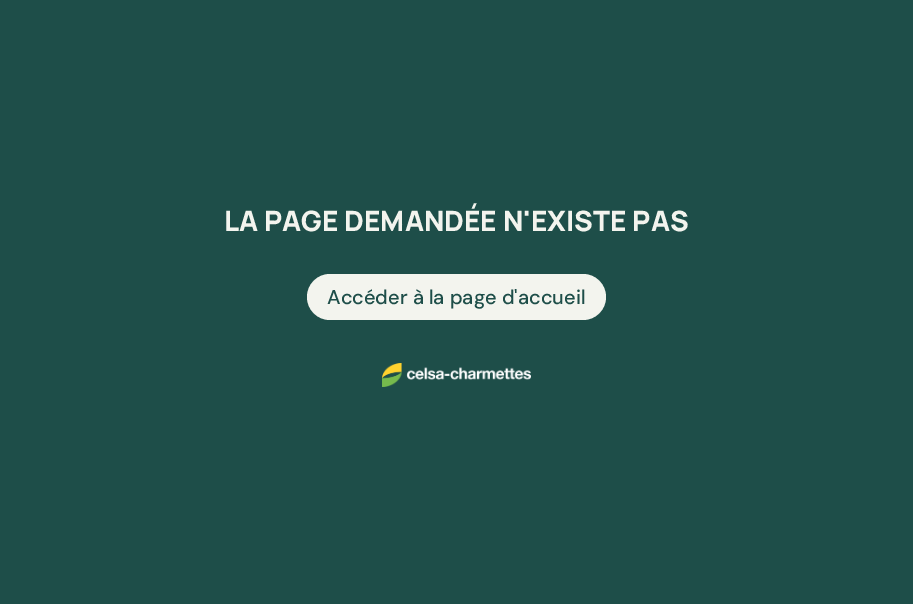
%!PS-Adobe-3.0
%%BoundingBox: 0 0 913 604
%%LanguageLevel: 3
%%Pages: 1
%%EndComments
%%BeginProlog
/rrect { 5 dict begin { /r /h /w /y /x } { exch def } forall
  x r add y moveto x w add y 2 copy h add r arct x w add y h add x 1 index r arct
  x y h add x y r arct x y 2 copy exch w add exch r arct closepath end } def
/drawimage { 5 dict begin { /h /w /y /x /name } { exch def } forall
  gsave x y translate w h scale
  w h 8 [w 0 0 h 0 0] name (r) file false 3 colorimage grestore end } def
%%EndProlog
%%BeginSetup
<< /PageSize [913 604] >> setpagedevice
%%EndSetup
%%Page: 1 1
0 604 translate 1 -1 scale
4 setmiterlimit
0.118 0.306 0.286 setrgbcolor
0 0 913 604 rectfill
0.953 0.957 0.933 setrgbcolor
307 274 299 46 23 rrect fill
(images/1.raw) 382 363 149 24 drawimage
/Manrope-ExtraLight [28 0 0 -28 0 0] selectfont
224 231 moveto (LA PAGE DEMANDÉE N'EXISTE PAS) show
/DMSans-Medium [20 0 0 -20 0 0] selectfont
0.118 0.306 0.286 setrgbcolor
327 304 moveto (Accéder à la page d'accueil) show
showpage
%%EOF
